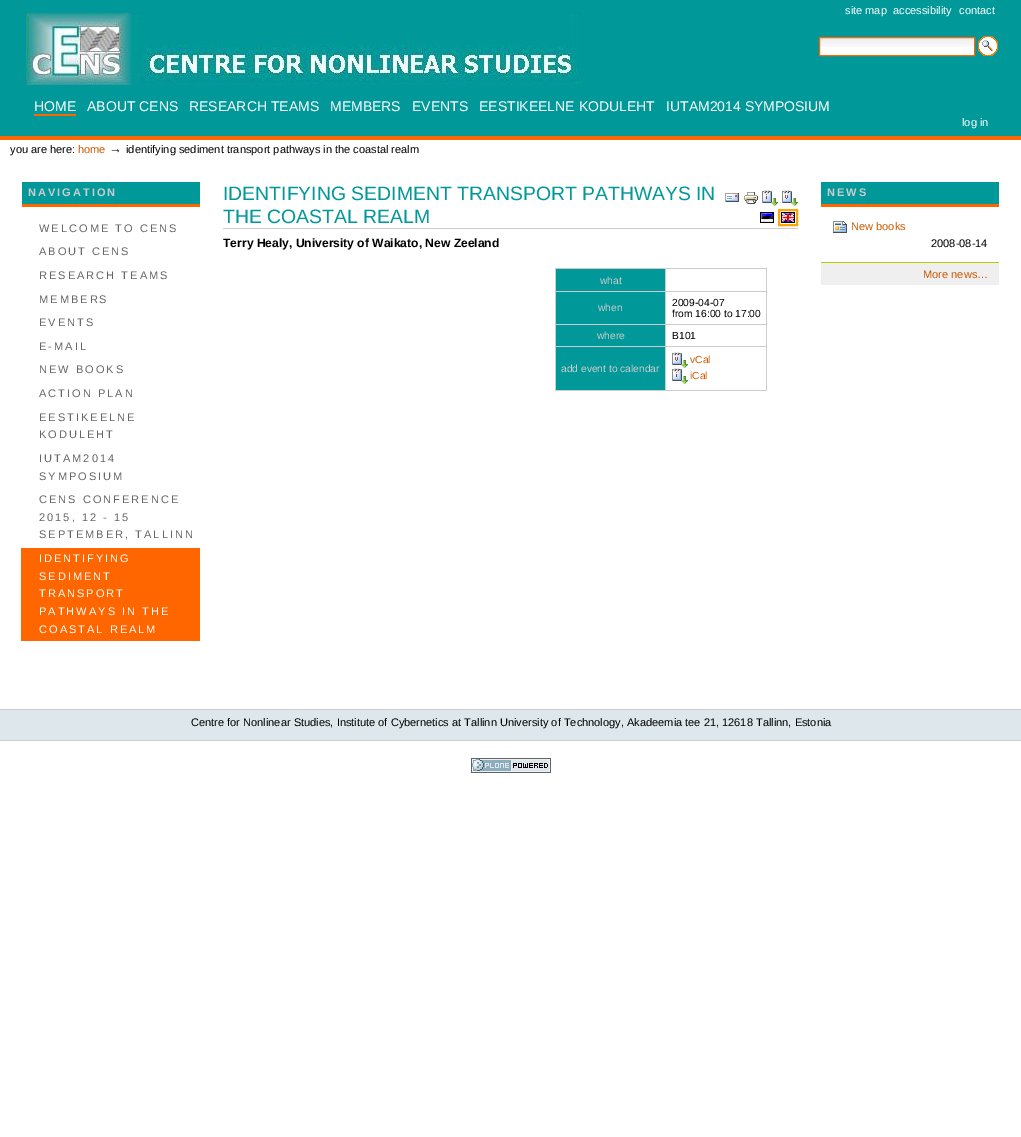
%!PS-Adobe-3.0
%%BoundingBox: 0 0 1021 1137
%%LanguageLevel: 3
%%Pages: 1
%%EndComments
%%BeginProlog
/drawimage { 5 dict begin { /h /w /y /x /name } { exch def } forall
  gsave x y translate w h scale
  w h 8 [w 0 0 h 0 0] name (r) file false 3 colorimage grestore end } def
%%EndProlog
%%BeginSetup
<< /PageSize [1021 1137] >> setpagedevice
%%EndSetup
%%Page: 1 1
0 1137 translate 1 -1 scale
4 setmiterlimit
1 setgray
0 0 1021 1137 rectfill
0 0.596 0.6 setrgbcolor
0 0 1021 136 rectfill
(images/1.raw) 26 13 555 72 drawimage
1 setgray
820 47 154 8 rectfill
(images/2.raw) 820 38 154 9 drawimage
1 0.4 0 setrgbcolor
819.5 37.5 155 18 rectstroke
(images/3.raw) 978 36 20 20 drawimage
34 114 42 2 rectfill
0 136 1021 4 rectfill
0 0.596 0.6 setrgbcolor
22 182 178 22 rectfill
1 0.4 0 setrgbcolor
22 204 178 3 rectfill
21 548 179 93 rectfill
0.8 setgray
223 228 575 1 rectfill
555 390 212 1 rectfill
555 268 1 123 rectfill
555 268 212 1 rectfill
555 291 212 1 rectfill
555 324 212 1 rectfill
555 346 212 1 rectfill
766 346 1 45 rectfill
766 324 1 23 rectfill
766 291 1 34 rectfill
766 268 1 24 rectfill
0 0.596 0.6 setrgbcolor
556 269 109 22 rectfill
0.8 setgray
665 346 1 45 rectfill
665 324 1 23 rectfill
665 291 1 34 rectfill
665 268 1 24 rectfill
0 0.596 0.6 setrgbcolor
556 292 109 32 rectfill
556 325 109 21 rectfill
556 347 109 43 rectfill
(images/4.raw) 672 352 16 16 drawimage
(images/5.raw) 672 368 16 16 drawimage
(images/6.raw) 725 193 14 9 drawimage
(images/7.raw) 744 192 14 12 drawimage
(images/5.raw) 762 190 16 16 drawimage
(images/4.raw) 782 190 16 16 drawimage
(images/8.raw) 760 212 14 11 drawimage
1 0.647 0 setrgbcolor
2 setlinewidth
779 210 18 15 rectstroke
(images/9.raw) 781 212 14 11 drawimage
0 0.596 0.6 setrgbcolor
821 182 178 22 rectfill
1 0.4 0 setrgbcolor
821 204 178 3 rectfill
(images/10.raw) 833 221 14 12 drawimage
0.937 setgray
821 263 178 22 rectfill
0.714 0.796 0 setrgbcolor
821 262 178 1 rectfill
0.871 0.906 0.925 setrgbcolor
0 710 1021 30 rectfill
0.8 setgray
0 709 1021 1 rectfill
0 740 1021 1 rectfill
(images/11.raw) 471 758 80 15 drawimage
/LiberationSans-Regular [11.05 0 0 -11.05 0 0] selectfont
1 setgray
845 14 moveto (site map) show
893 14 moveto (accessibility) show
959 14 moveto (contact) show
/LiberationSans-Regular [14 0 0 -14 0 0] selectfont
34 111 moveto (HOME) show
87 111 moveto (ABOUT CENS) show
189 111 moveto (RESEARCH TEAMS) show
330 111 moveto (MEMBERS) show
412 111 moveto (EVENTS) show
479 111 moveto (EESTIKEELNE KODULEHT) show
666 111 moveto (IUTAM2014 SYMPOSIUM) show
/LiberationSans-Regular [11.05 0 0 -11.05 0 0] selectfont
962 126 moveto (log in) show
0 setgray
10 153 moveto (you are here:) show
0.8 0.345 0 setrgbcolor
78 153 moveto (home) show
/LiberationSans-Regular [13 0 0 -13 0 0] selectfont
0 setgray
109 153 moveto (→) show
/LiberationSans-Regular [11.05 0 0 -11.05 0 0] selectfont
126 153 moveto (identifying sediment transport pathways in the coastal realm) show
/LiberationSans-Bold [11.05 0 0 -11.05 0 0] selectfont
0.8 setgray
28 196 moveto 2 0 (NAVIGATION) ashow
/LiberationSans-Regular [11.05 0 0 -11.05 0 0] selectfont
0.4 setgray
39 232 moveto 2 0 (WELCOME TO CENS) ashow
39 255 moveto 2 0 (ABOUT CENS) ashow
39 279 moveto 2 0 (RESEARCH TEAMS) ashow
39 303 moveto 2 0 (MEMBERS) ashow
39 326 moveto 2 0 (EVENTS) ashow
39 350 moveto 2 0 (E-MAIL) ashow
39 373 moveto 2 0 (NEW BOOKS) ashow
39 397 moveto 2 0 (ACTION PLAN) ashow
39 421 moveto 2 0 (EESTIKEELNE) ashow
39 438 moveto 2 0 (KODULEHT) ashow
39 462 moveto 2 0 (IUTAM2014) ashow
39 480 moveto 2 0 (SYMPOSIUM) ashow
39 503 moveto 2 0 (CENS CONFERENCE) ashow
39 521 moveto 2 0 (2015, 12 - 15) ashow
39 538 moveto 2 0 (SEPTEMBER, TALLINN) ashow
1 setgray
39 562 moveto 2 0 (IDENTIFYING) ashow
39 580 moveto 2 0 (SEDIMENT) ashow
39 597 moveto 2 0 (TRANSPORT) ashow
39 615 moveto 2 0 (PATHWAYS IN THE) ashow
39 633 moveto 2 0 (COASTAL REALM) ashow
/LiberationSans-Regular [19.4 0 0 -19.4 0 0] selectfont
0 0.596 0.6 setrgbcolor
223 200 moveto (IDENTIFYING SEDIMENT TRANSPORT PATHWAYS IN) show
223 223 moveto (THE COASTAL REALM) show
/LiberationSans-Bold [12.1 0 0 -12.1 0 0] selectfont
0 setgray
223 247 moveto (Terry Healy, University of Waikato, New Zeeland) show
/LiberationSans-Regular [10.25 0 0 -10.25 0 0] selectfont
0.8 setgray
600 284 moveto (what) show
598 311 moveto (when) show
0 setgray
672 306 moveto (2009-04-07) show
672 317 moveto (from 16:00 to 17:00) show
0.8 setgray
597 339 moveto (where) show
0 setgray
672 339 moveto (B101) show
0.8 setgray
561 372 moveto (add event to calendar) show
0.8 0.345 0 setrgbcolor
690 363 moveto (vCal) show
690 379 moveto (iCal) show
/LiberationSans-Bold [11.05 0 0 -11.05 0 0] selectfont
0.8 setgray
827 196 moveto 2 0 (NEWS) ashow
/LiberationSans-Regular [11.05 0 0 -11.05 0 0] selectfont
0.8 0.345 0 setrgbcolor
851 230 moveto (New books) show
0 setgray
931 247 moveto (2008-08-14) show
0.8 0.345 0 setrgbcolor
923 278 moveto (More news…) show
0 setgray
191 726 moveto (Centre for Nonlinear Studies, Institute of Cybernetics at Tallinn University of Technology, Akadeemia tee 21, 12618 Tallinn, Estonia) show
showpage
%%EOF
